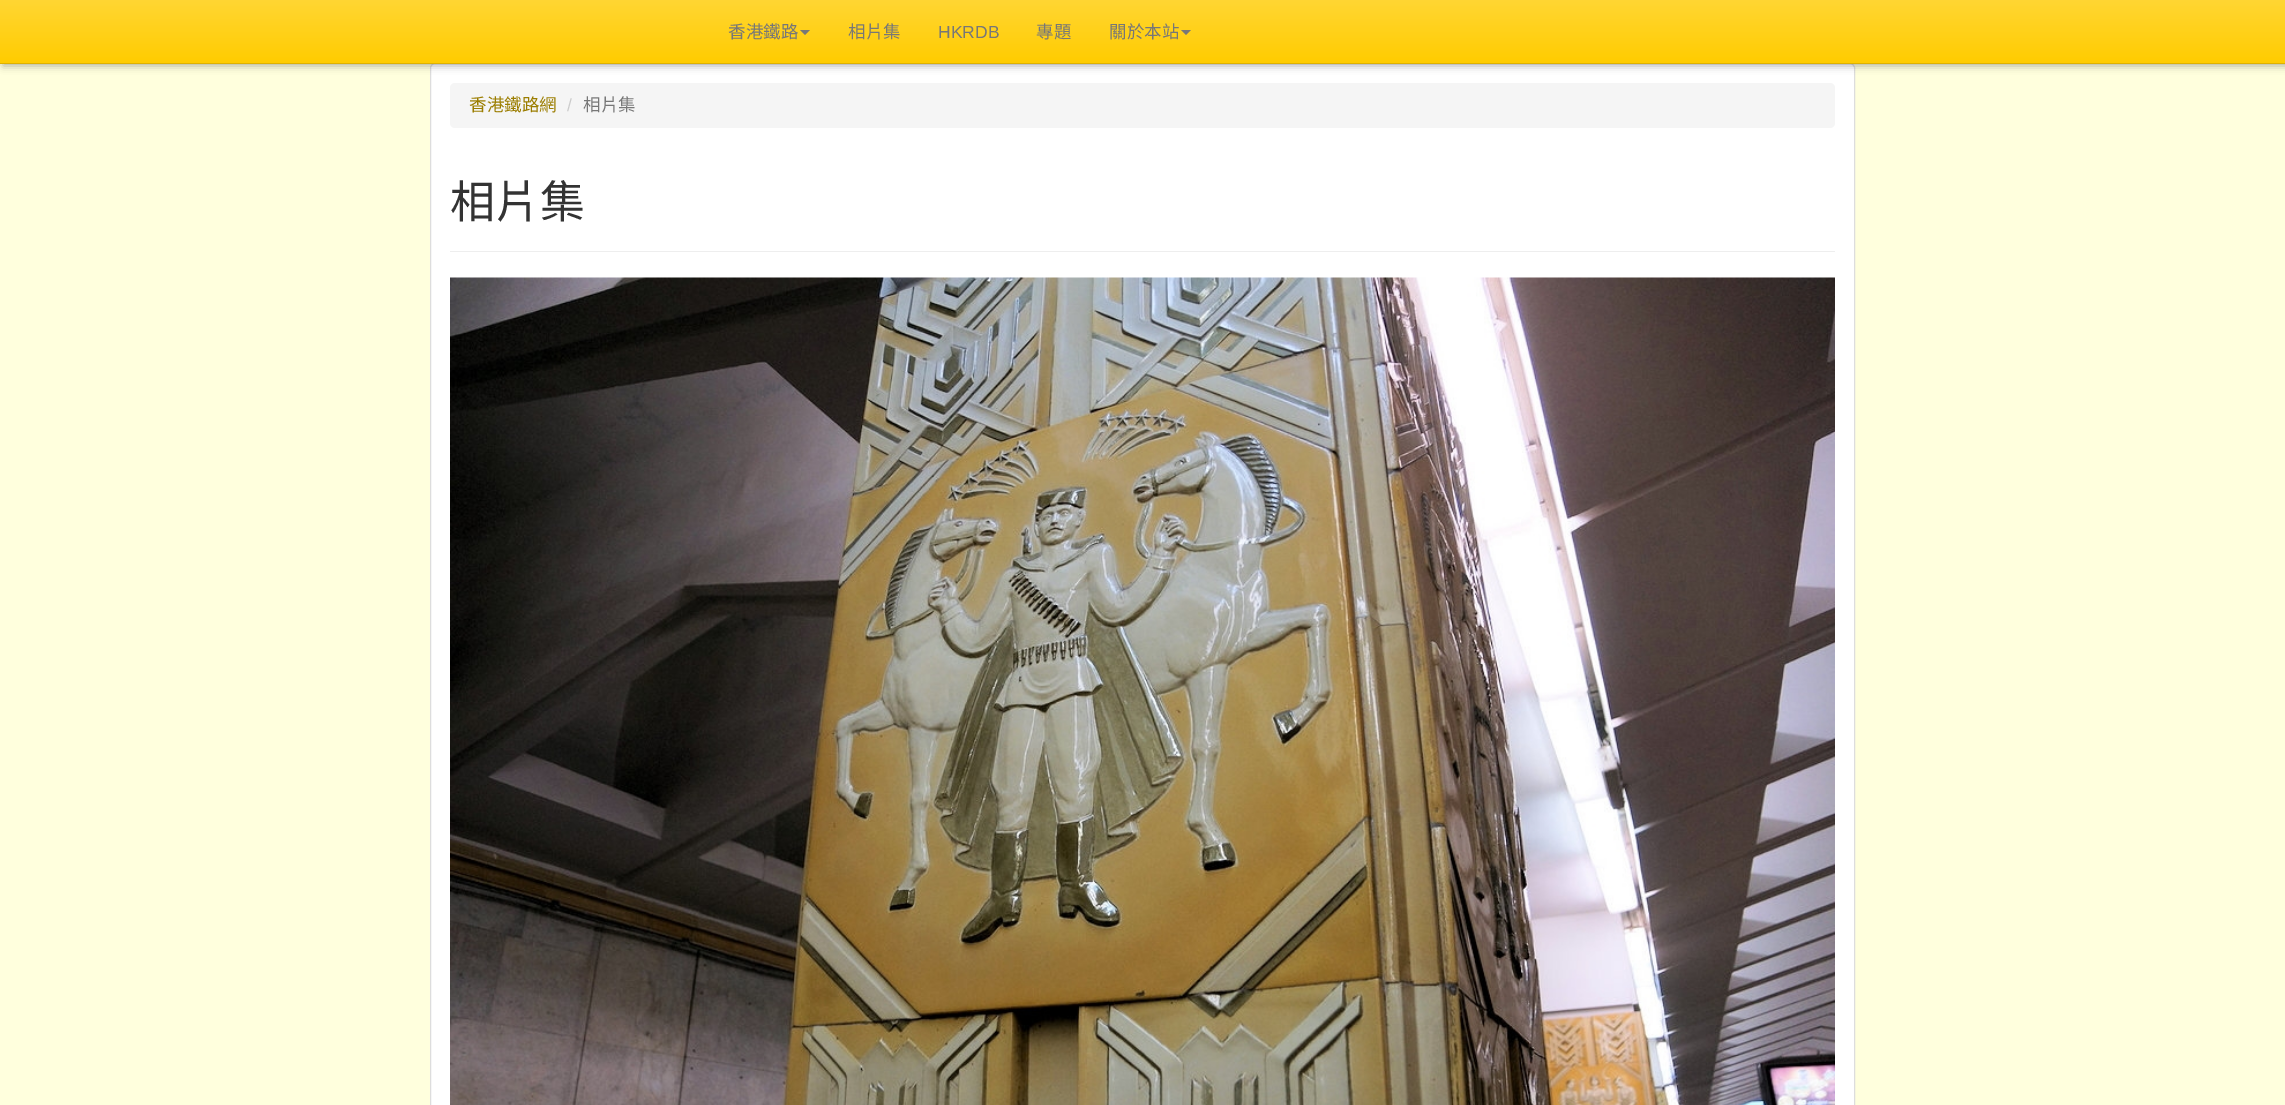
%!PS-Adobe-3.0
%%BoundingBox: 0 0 2285 1105
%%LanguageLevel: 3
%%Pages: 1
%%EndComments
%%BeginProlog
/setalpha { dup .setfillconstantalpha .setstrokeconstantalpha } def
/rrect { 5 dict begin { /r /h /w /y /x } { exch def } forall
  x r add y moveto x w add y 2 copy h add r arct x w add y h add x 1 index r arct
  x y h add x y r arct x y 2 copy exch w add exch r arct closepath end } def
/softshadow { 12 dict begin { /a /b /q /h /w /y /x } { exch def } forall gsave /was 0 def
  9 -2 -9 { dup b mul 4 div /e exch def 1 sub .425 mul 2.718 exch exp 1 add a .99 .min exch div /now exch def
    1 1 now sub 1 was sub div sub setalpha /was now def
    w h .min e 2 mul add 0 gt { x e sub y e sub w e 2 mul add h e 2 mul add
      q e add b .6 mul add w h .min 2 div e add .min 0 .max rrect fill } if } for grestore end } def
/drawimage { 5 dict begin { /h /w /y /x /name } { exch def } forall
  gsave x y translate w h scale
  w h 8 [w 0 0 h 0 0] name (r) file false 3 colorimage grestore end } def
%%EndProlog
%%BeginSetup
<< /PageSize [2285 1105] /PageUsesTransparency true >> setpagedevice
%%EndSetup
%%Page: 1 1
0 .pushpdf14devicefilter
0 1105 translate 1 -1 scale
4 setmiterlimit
1 1 0.867 setrgbcolor
0 0 2285 1105 rectfill
1 setgray
430.5 63.5 1424 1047 4.5 rrect gsave fill grestore
0.867 setgray
stroke
0 setgray
3 3 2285 63 0 4 0.3 softshadow
gsave newpath 0 0 moveto 2285 0 lineto 2285 63 lineto 0 63 lineto closepath clip newpath
<< /ShadingType 2 /ColorSpace /DeviceRGB /Coords [1143 0 1143 63] /Extend [true true] /Function << /FunctionType 2 /Domain [0 1] /C0 [1 0.839 0.2] /C1 [1 0.8 0] /N 1 >> >> shfill grestore
0.871 0.694 0 setrgbcolor
0 63 2285 1 rectfill
0.467 setgray
newpath 800 30 moveto 810 30 lineto 805 35 lineto closepath fill
newpath 1181 30 moveto 1191 30 lineto 1186 35 lineto closepath fill
0.961 setgray
450 83 1385 45 5 rrect fill
0.933 setgray
450 251 1385 1 rectfill
(images/1.raw) 450 277 1385 828 drawimage
/NotoSansCJKTC-Regular [17.5 0 0 -17.5 0 0] selectfont
0.467 setgray
728 38 moveto (香港鐵路) show
848 38 moveto (相片集) show
/LiberationSans-Regular [17.5 0 0 -17.5 0 0] selectfont
938 38 moveto (HKRDB) show
/NotoSansCJKTC-Regular [17.5 0 0 -17.5 0 0] selectfont
1036 38 moveto (專題) show
1109 38 moveto (關於本站) show
0.608 0.49 0 setrgbcolor
469 111 moveto (香港鐵路網) show
/LiberationSans-Regular [17.5 0 0 -17.5 0 0] selectfont
0.8 setgray
567 111 moveto (/) show
/NotoSansCJKTC-Regular [17.5 0 0 -17.5 0 0] selectfont
0.467 setgray
583 111 moveto (相片集) show
/NotoSansCJKTC-Regular [45 0 0 -45 0 0] selectfont
0.2 setgray
450 218 moveto (相片集) show
.poppdf14devicefilter showpage
%%EOF
